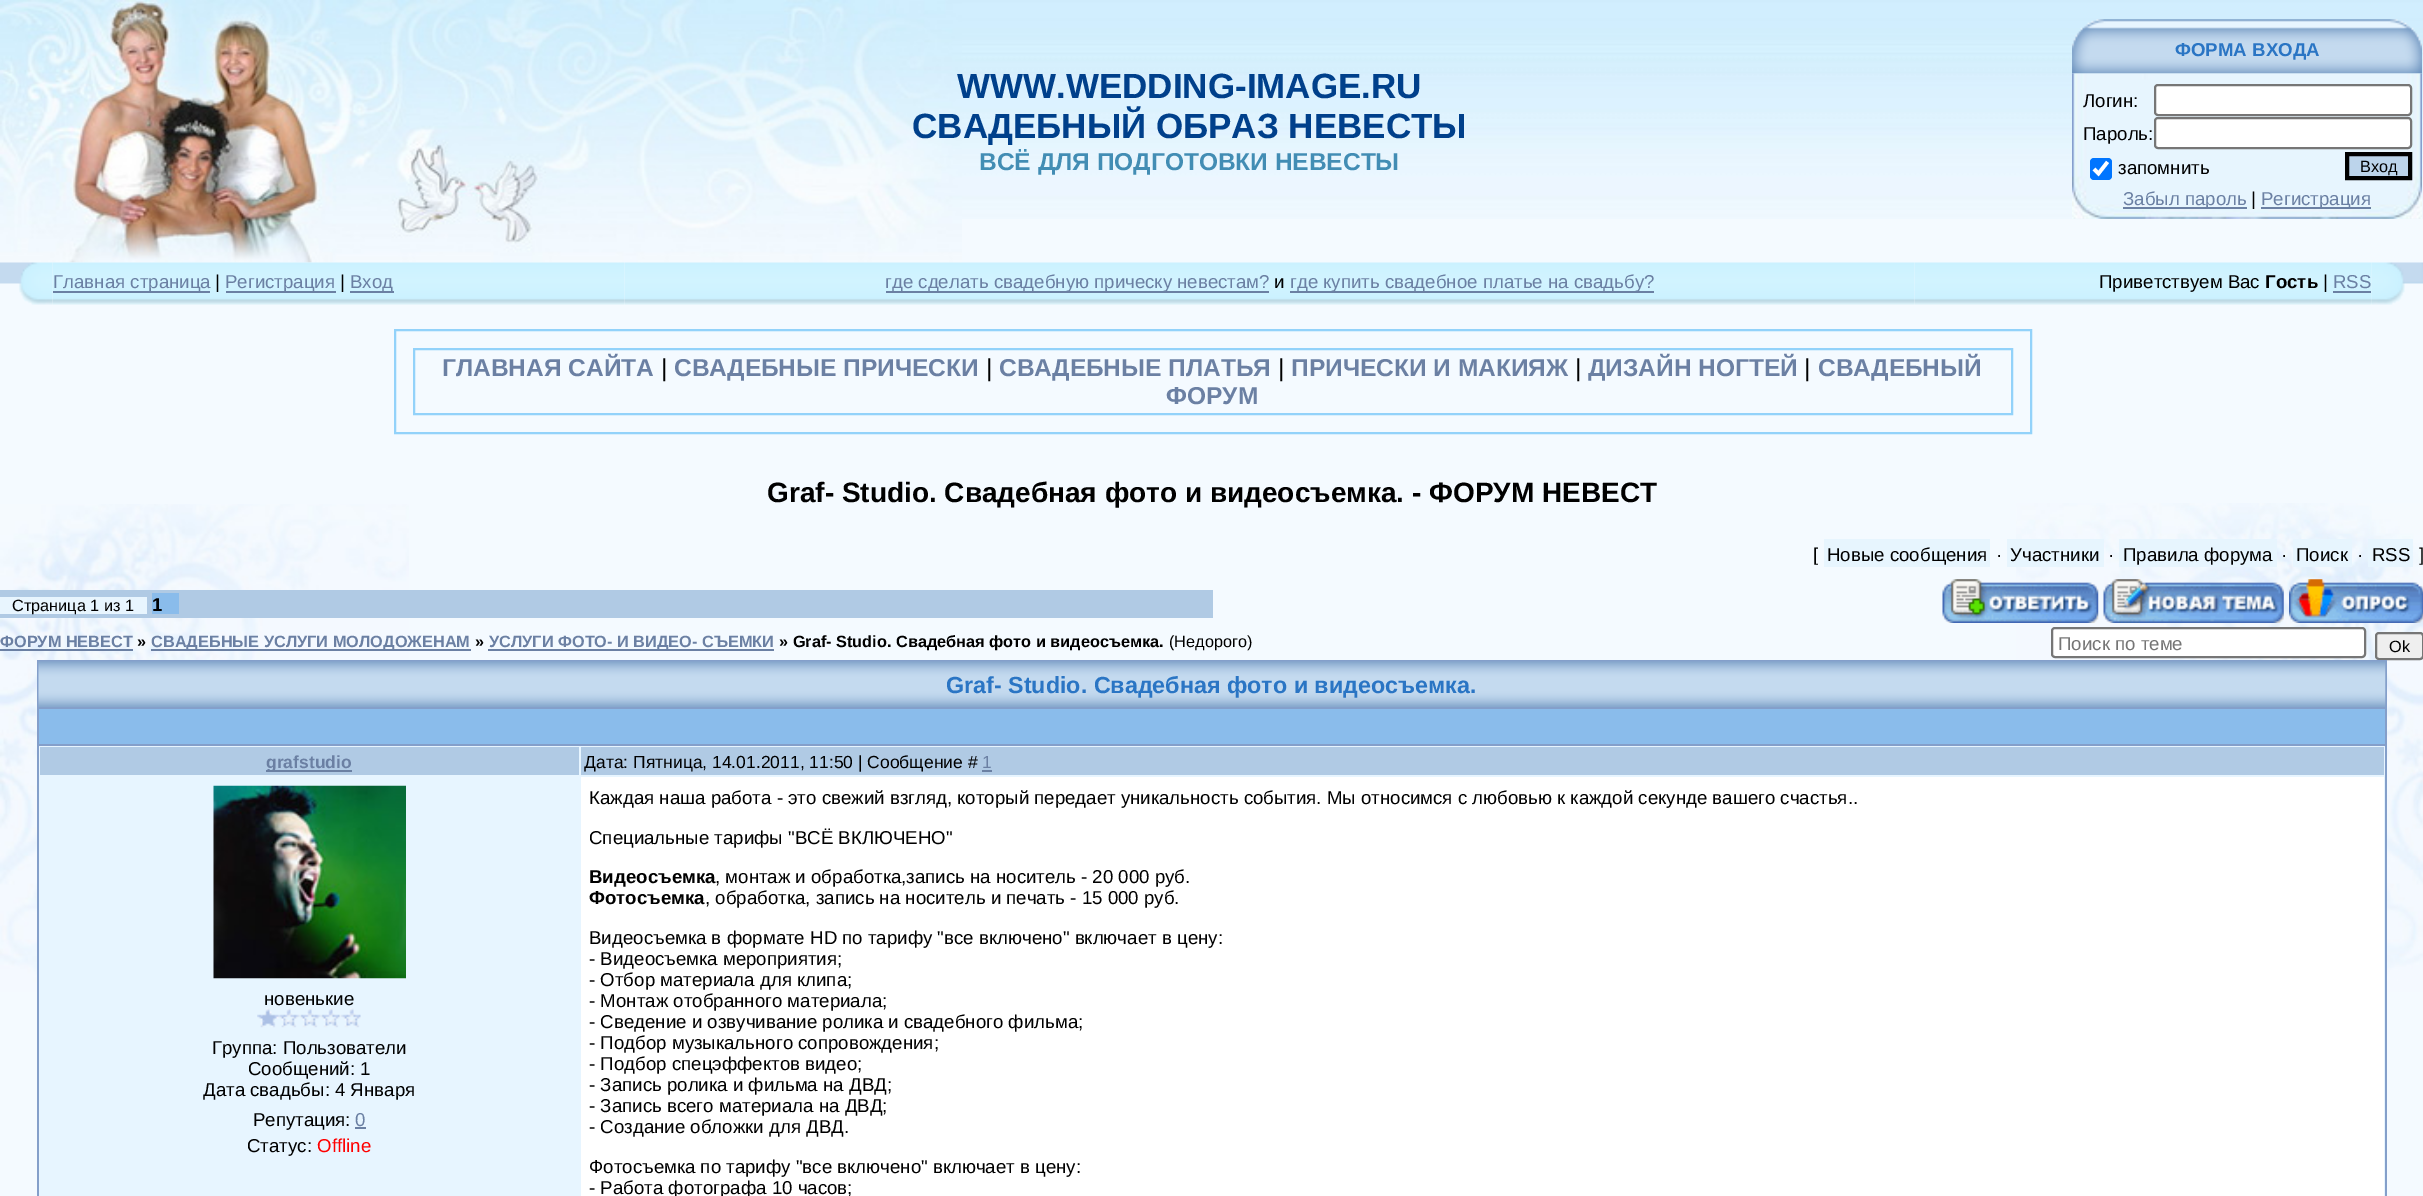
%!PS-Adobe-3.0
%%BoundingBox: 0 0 2423 1196
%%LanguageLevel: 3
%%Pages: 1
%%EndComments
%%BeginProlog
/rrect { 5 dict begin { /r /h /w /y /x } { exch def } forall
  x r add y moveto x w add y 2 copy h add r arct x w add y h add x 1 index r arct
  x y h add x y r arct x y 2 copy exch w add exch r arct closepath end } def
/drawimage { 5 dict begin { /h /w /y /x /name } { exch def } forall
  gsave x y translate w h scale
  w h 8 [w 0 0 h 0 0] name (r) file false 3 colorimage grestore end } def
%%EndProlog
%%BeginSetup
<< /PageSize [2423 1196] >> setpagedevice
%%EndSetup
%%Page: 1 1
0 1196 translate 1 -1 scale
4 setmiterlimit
0.957 0.98 1 setrgbcolor
0 0 2423 1196 rectfill
(images/1.raw) 962 0 1461 219 drawimage
(images/2.raw) 0 0 962 263 drawimage
(images/3.raw) 2072 19 350 55 drawimage
(images/4.raw) 2072 73 350 146 drawimage
1 setgray
2155 85 256 30 3 rrect gsave fill grestore
0.463 setgray
2 setlinewidth
stroke
1 setgray
2155 118 256 30 3 rrect gsave fill grestore
0.463 setgray
stroke
0 0.459 1 setrgbcolor
2090 158 22 22 4 rrect fill
1 setgray
3.6 setlinewidth
newpath 2094 169 moveto 2098.5 173.5 lineto 2107.5 162 lineto stroke
0.737 0.831 0.922 setrgbcolor
newpath 2347 154 moveto 2410 154 lineto 2410 178 lineto 2347 178 lineto closepath gsave fill grestore
0 setgray
4 setlinewidth
stroke
0.42 0.502 0.639 setrgbcolor
2123 207 124 2 rectfill
2261 207 110 2 rectfill
(images/6.raw) 52 262 573 43 drawimage
(images/5.raw) 0 262 53 43 drawimage
53 291 157 2 rectfill
226 291 110 2 rectfill
350 291 44 2 rectfill
(images/7.raw) 625 262 1290 43 drawimage
886 291 383 2 rectfill
1290 291 364 2 rectfill
(images/8.raw) 1914 262 458 43 drawimage
2333 291 38 2 rectfill
(images/9.raw) 2371 262 52 43 drawimage
0.573 0.824 0.98 setrgbcolor
2 setlinewidth
395 330 1636 103 rectstroke
414 349 1598 65 rectstroke
(images/10.raw) 2016 503 407 489 drawimage
(images/11.raw) 0 504 409 488 drawimage
0.906 0.961 0.996 setrgbcolor
1824 539 166 28 rectfill
2007 539 97 28 rectfill
2119 539 158 28 rectfill
2293 539 59 28 rectfill
2368 539 45 28 rectfill
0.69 0.792 0.894 setrgbcolor
0 590 1213 28 rectfill
0.91 0.961 0.996 setrgbcolor
0 597 147 17 rectfill
0.541 0.737 0.922 setrgbcolor
152 593 27 21 rectfill
(images/12.raw) 1942 579 157 44 drawimage
(images/13.raw) 2103 579 181 44 drawimage
(images/14.raw) 2289 579 134 44 drawimage
0.42 0.502 0.639 setrgbcolor
0 649 133 2 rectfill
151 649 320 2 rectfill
488 649 286 2 rectfill
1 setgray
2052 628 313 29 3 rrect gsave fill grestore
0.463 setgray
stroke
0.937 setgray
2376 633 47 26 3 rrect gsave fill grestore
0.463 setgray
stroke
0.518 0.624 0.792 setrgbcolor
37 660 2350 536 rectfill
(images/15.raw) 38 661 2348 46 drawimage
0.541 0.737 0.922 setrgbcolor
39 709 2346 35 rectfill
0.906 0.961 1 setrgbcolor
39 746 2346 450 rectfill
0.69 0.792 0.894 setrgbcolor
40 747 539 28 rectfill
0.42 0.502 0.639 setrgbcolor
266 770 86 2 rectfill
0.69 0.792 0.894 setrgbcolor
581 747 1803 28 rectfill
0.42 0.502 0.639 setrgbcolor
982 770 10 2 rectfill
(images/16.raw) 213 785 193 194 drawimage
(images/17.raw) 257 1008 104 20 drawimage
355 1127 11 2 rectfill
1 setgray
581 777 1803 419 rectfill
/LiberationSans-Bold [35 0 0 -35 0 0] selectfont
0 0.251 0.545 setrgbcolor
957 98 moveto (WWW.WEDDING-IMAGE.RU) show
912 138 moveto (СВАДЕБНЫЙ ОБРАЗ НЕВЕСТЫ) show
/LiberationSans-Bold [24.5 0 0 -24.5 0 0] selectfont
0.259 0.553 0.706 setrgbcolor
979 170 moveto (ВСЁ ДЛЯ ПОДГОТОВКИ НЕВЕСТЫ) show
/LiberationSans-Bold [18.67 0 0 -18.67 0 0] selectfont
0.165 0.459 0.769 setrgbcolor
2175 56 moveto (ФОРМА ВХОДА) show
/LiberationSans-Regular [18.67 0 0 -18.67 0 0] selectfont
0 setgray
2083 107 moveto (Логин:) show
2083 140 moveto (Пароль:) show
2118 174 moveto (запомнить) show
/LiberationSans-Regular [16.3 0 0 -16.3 0 0] selectfont
2360 172 moveto (Вход) show
/LiberationSans-Regular [18.67 0 0 -18.67 0 0] selectfont
0.42 0.502 0.639 setrgbcolor
2123 205 moveto (Забыл пароль) show
0 setgray
2251 205 moveto (|) show
0.42 0.502 0.639 setrgbcolor
2261 205 moveto (Регистрация) show
53 288 moveto (Главная страница) show
0 setgray
215 288 moveto (|) show
0.42 0.502 0.639 setrgbcolor
225 288 moveto (Регистрация) show
0 setgray
340 288 moveto (|) show
0.42 0.502 0.639 setrgbcolor
350 288 moveto (Вход) show
885 288 moveto (где сделать свадебную прическу невестам?) show
0 setgray
1274 288 moveto (и) show
0.42 0.502 0.639 setrgbcolor
1290 288 moveto (где купить свадебное платье на свадьбу?) show
0 setgray
2099 288 moveto (Приветствуем Вас) show
/LiberationSans-Bold [18.67 0 0 -18.67 0 0] selectfont
2265 288 moveto (Гость) show
/LiberationSans-Regular [18.67 0 0 -18.67 0 0] selectfont
2323 288 moveto (|) show
0.42 0.502 0.639 setrgbcolor
2333 288 moveto (RSS) show
/LiberationSans-Bold [24.5 0 0 -24.5 0 0] selectfont
442 376 moveto (ГЛАВНАЯ САЙТА) show
/LiberationSans-Regular [24.5 0 0 -24.5 0 0] selectfont
0 setgray
661 376 moveto (|) show
/LiberationSans-Bold [24.5 0 0 -24.5 0 0] selectfont
0.42 0.502 0.639 setrgbcolor
674 376 moveto (СВАДЕБНЫЕ ПРИЧЕСКИ) show
/LiberationSans-Regular [24.5 0 0 -24.5 0 0] selectfont
0 setgray
986 376 moveto (|) show
/LiberationSans-Bold [24.5 0 0 -24.5 0 0] selectfont
0.42 0.502 0.639 setrgbcolor
999 376 moveto (СВАДЕБНЫЕ ПЛАТЬЯ) show
/LiberationSans-Regular [24.5 0 0 -24.5 0 0] selectfont
0 setgray
1278 376 moveto (|) show
/LiberationSans-Bold [24.5 0 0 -24.5 0 0] selectfont
0.42 0.502 0.639 setrgbcolor
1291 376 moveto (ПРИЧЕСКИ И МАКИЯЖ) show
/LiberationSans-Regular [24.5 0 0 -24.5 0 0] selectfont
0 setgray
1575 376 moveto (|) show
/LiberationSans-Bold [24.5 0 0 -24.5 0 0] selectfont
0.42 0.502 0.639 setrgbcolor
1588 376 moveto (ДИЗАЙН НОГТЕЙ) show
/LiberationSans-Regular [24.5 0 0 -24.5 0 0] selectfont
0 setgray
1804 376 moveto (|) show
/LiberationSans-Bold [24.5 0 0 -24.5 0 0] selectfont
0.42 0.502 0.639 setrgbcolor
1818 376 moveto (СВАДЕБНЫЙ) show
1166 404 moveto (ФОРУМ) show
/LiberationSans-Bold [28 0 0 -28 0 0] selectfont
0 setgray
767 502 moveto (Graf- Studio. Свадебная фото и видеосъемка. - ФОРУМ НЕВЕСТ) show
/LiberationSans-Regular [18.67 0 0 -18.67 0 0] selectfont
1813 561 moveto ([) show
1827 561 moveto (Новые сообщения) show
1996 561 moveto (·) show
2010 561 moveto (Участники) show
2108 561 moveto (·) show
2123 561 moveto (Правила форума) show
2281 561 moveto (·) show
2296 561 moveto (Поиск) show
2357 561 moveto (·) show
2372 561 moveto (RSS) show
2419 561 moveto (]) show
/LiberationSans-Regular [16.3 0 0 -16.3 0 0] selectfont
12 611 moveto (Страница 1 из 1) show
/LiberationSans-Bold [18.67 0 0 -18.67 0 0] selectfont
152 611 moveto (1) show
/LiberationSans-Bold [16.3 0 0 -16.3 0 0] selectfont
0.42 0.502 0.639 setrgbcolor
0 647 moveto (ФОРУМ НЕВЕСТ) show
0 setgray
137 647 moveto (») show
0.42 0.502 0.639 setrgbcolor
151 647 moveto (СВАДЕБНЫЕ УСЛУГИ МОЛОДОЖЕНАМ) show
0 setgray
475 647 moveto (») show
0.42 0.502 0.639 setrgbcolor
489 647 moveto (УСЛУГИ ФОТО- И ВИДЕО- СЪЕМКИ) show
0 setgray
779 647 moveto (» Graf- Studio. Свадебная фото и видеосъемка.) show
/LiberationSans-Regular [16.3 0 0 -16.3 0 0] selectfont
1169 647 moveto (\(Недорого\)) show
/LiberationSans-Regular [18.67 0 0 -18.67 0 0] selectfont
0.459 setgray
2058 650 moveto (Поиск по теме) show
/LiberationSans-Regular [16.3 0 0 -16.3 0 0] selectfont
0 setgray
2389 652 moveto (Ok) show
/LiberationSans-Bold [23.3 0 0 -23.3 0 0] selectfont
0.165 0.459 0.769 setrgbcolor
946 693 moveto (Graf- Studio. Свадебная фото и видеосъемка.) show
/LiberationSans-Bold [17.5 0 0 -17.5 0 0] selectfont
0.42 0.502 0.639 setrgbcolor
266 768 moveto (grafstudio) show
/LiberationSans-Regular [17.5 0 0 -17.5 0 0] selectfont
0 setgray
584 768 moveto (Дата: Пятница, 14.01.2011, 11:50 | Сообщение #) show
0.42 0.502 0.639 setrgbcolor
982 768 moveto (1) show
/LiberationSans-Regular [18.67 0 0 -18.67 0 0] selectfont
0 setgray
264 1005 moveto (новенькие) show
212 1054 moveto (Группа: Пользователи) show
248 1075 moveto (Сообщений: 1) show
203 1096 moveto (Дата свадьбы: 4 Января) show
253 1126 moveto (Репутация:) show
0.42 0.502 0.639 setrgbcolor
355 1126 moveto (0) show
0 setgray
247 1152 moveto (Статус:) show
1 0 0 setrgbcolor
317 1152 moveto (Offline) show
0 setgray
589 804 moveto (Каждая наша работа - это свежий взгляд, который передает уникальность события. Мы относимся с любовью к каждой секунде вашего счастья..) show
589 844 moveto (Специальные тарифы "ВСЁ ВКЛЮЧЕНО") show
/LiberationSans-Bold [18.67 0 0 -18.67 0 0] selectfont
589 883 moveto (Видеосъемка) show
/LiberationSans-Regular [18.67 0 0 -18.67 0 0] selectfont
715 883 moveto (, монтаж и обработка,запись на носитель - 20 000 руб.) show
/LiberationSans-Bold [18.67 0 0 -18.67 0 0] selectfont
589 904 moveto (Фотосъемка) show
/LiberationSans-Regular [18.67 0 0 -18.67 0 0] selectfont
705 904 moveto (, обработка, запись на носитель и печать - 15 000 руб.) show
589 944 moveto (Видеосъемка в формате HD по тарифу "все включено" включает в цену:) show
589 965 moveto (- Видеосъемка мероприятия;) show
589 986 moveto (- Отбор материала для клипа;) show
589 1007 moveto (- Монтаж отобранного материала;) show
589 1028 moveto (- Сведение и озвучивание ролика и свадебного фильма;) show
589 1049 moveto (- Подбор музыкального сопровождения;) show
589 1070 moveto (- Подбор спецэффектов видео;) show
589 1091 moveto (- Запись ролика и фильма на ДВД;) show
589 1112 moveto (- Запись всего материала на ДВД;) show
589 1133 moveto (- Создание обложки для ДВД.) show
589 1173 moveto (Фотосъемка по тарифу "все включено" включает в цену:) show
589 1194 moveto (- Работа фотографа 10 часов;) show
showpage
%%EOF
